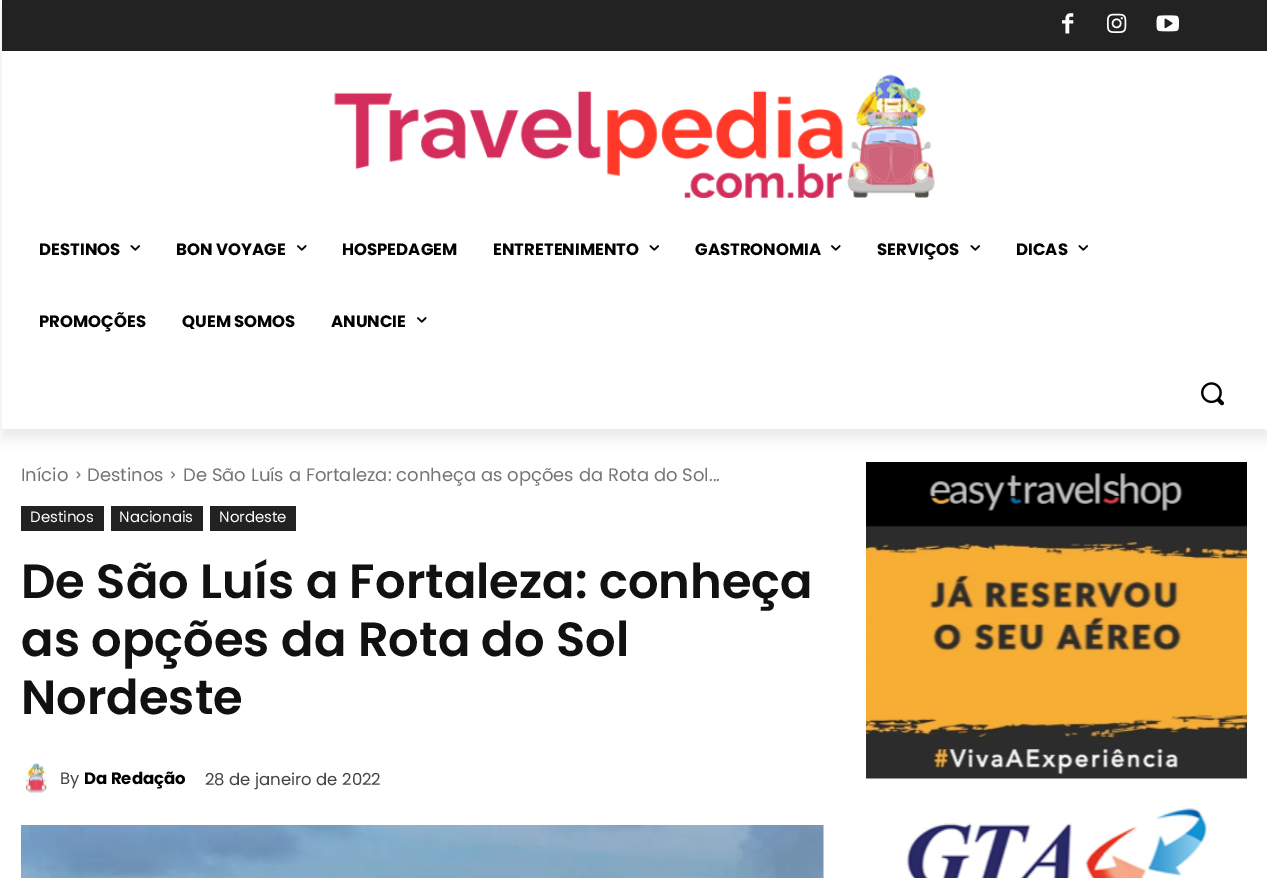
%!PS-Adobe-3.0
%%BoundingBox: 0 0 1267 878
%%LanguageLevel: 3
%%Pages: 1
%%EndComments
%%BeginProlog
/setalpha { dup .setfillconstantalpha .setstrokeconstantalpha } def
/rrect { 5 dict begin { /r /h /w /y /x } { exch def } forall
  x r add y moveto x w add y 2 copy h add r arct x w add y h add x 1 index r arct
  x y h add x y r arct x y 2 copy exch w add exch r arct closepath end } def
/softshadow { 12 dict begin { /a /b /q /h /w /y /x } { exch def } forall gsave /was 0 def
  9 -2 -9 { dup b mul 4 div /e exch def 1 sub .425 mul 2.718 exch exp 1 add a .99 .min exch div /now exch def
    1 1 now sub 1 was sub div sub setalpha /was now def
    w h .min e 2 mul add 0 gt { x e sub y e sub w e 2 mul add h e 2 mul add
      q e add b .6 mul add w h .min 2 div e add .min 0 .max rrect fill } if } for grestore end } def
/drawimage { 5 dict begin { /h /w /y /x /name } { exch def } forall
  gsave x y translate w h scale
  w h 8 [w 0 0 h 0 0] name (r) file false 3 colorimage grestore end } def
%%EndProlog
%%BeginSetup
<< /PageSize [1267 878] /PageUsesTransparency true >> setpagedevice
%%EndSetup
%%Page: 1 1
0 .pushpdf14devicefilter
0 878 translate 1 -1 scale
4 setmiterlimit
1 setgray
0 0 1267 878 rectfill
0.133 setgray
2 0 1265 51 rectfill
(images/1.raw) 1062 13 12 21 drawimage
(images/2.raw) 1107 13 20 20 drawimage
(images/3.raw) 1156 15 23 17 drawimage
(images/4.raw) 334 74 601 124 drawimage
gsave
newpath 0 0 moveto 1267 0 lineto 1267 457 lineto 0 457 lineto closepath 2 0 moveto 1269 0 lineto 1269 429 lineto 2 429 lineto closepath eoclip newpath
0 setgray
2 9 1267 429 0 6 0.08 softshadow
grestore
(images/5.raw) 130 245 10 6 drawimage
(images/6.raw) 297 245 10 6 drawimage
(images/5.raw) 649 245 10 6 drawimage
(images/6.raw) 831 245 10 6 drawimage
(images/5.raw) 970 245 10 6 drawimage
(images/5.raw) 1078 245 10 6 drawimage
(images/6.raw) 417 317 10 6 drawimage
(images/7.raw) 1201 382 23 24 drawimage
(images/8.raw) 76 471 5 8 drawimage
(images/9.raw) 171 471 4 8 drawimage
21 506 83 25 rectfill
111 506 92 25 rectfill
210 506 86 25 rectfill
(images/10.raw) 25 763 22 30 drawimage
(images/11.raw) 21 825 803 53 drawimage
(images/12.raw) 866 462 381 317 drawimage
(images/13.raw) 906 808 301 70 drawimage
/Poppins-Bold [16.5 0 0 -16.5 0 0] selectfont
0 setgray
39 255 moveto (DESTINOS) show
176 255 moveto (BON VOYAGE) show
342 255 moveto (HOSPEDAGEM) show
493 255 moveto (ENTRETENIMENTO) show
695 255 moveto (GASTRONOMIA) show
877 255 moveto (SERVIÇOS) show
1016 255 moveto (DICAS) show
39 327 moveto (PROMOÇÕES) show
182 327 moveto (QUEM SOMOS) show
331 327 moveto (ANUNCIE) show
/Poppins-Regular [18 0 0 -18 0 0] selectfont
0.455 setgray
21 481 moveto (Início) show
87 481 moveto (Destinos) show
183 481 moveto (De São Luís a Fortaleza: conheça as opções da Rota do Sol...) show
/Poppins-Regular [15 0 0 -15 0 0] selectfont
1 setgray
30 522 moveto (Destinos) show
119 522 moveto (Nacionais) show
219 522 moveto (Nordeste) show
/Poppins-SemiBold [48 0 0 -48 0 0] selectfont
0.067 setgray
21 598 moveto (De São Luís a Fortaleza: conheça) show
21 656 moveto (as opções da Rota do Sol) show
21 714 moveto (Nordeste) show
/Poppins-Regular [16.5 0 0 -16.5 0 0] selectfont
0.267 setgray
60 784 moveto (By) show
/Poppins-Bold [16.5 0 0 -16.5 0 0] selectfont
0 setgray
84 784 moveto (Da Redação) show
/Poppins-Regular [16.5 0 0 -16.5 0 0] selectfont
0.267 setgray
205 785 moveto (28 de janeiro de 2022) show
.poppdf14devicefilter showpage
%%EOF
